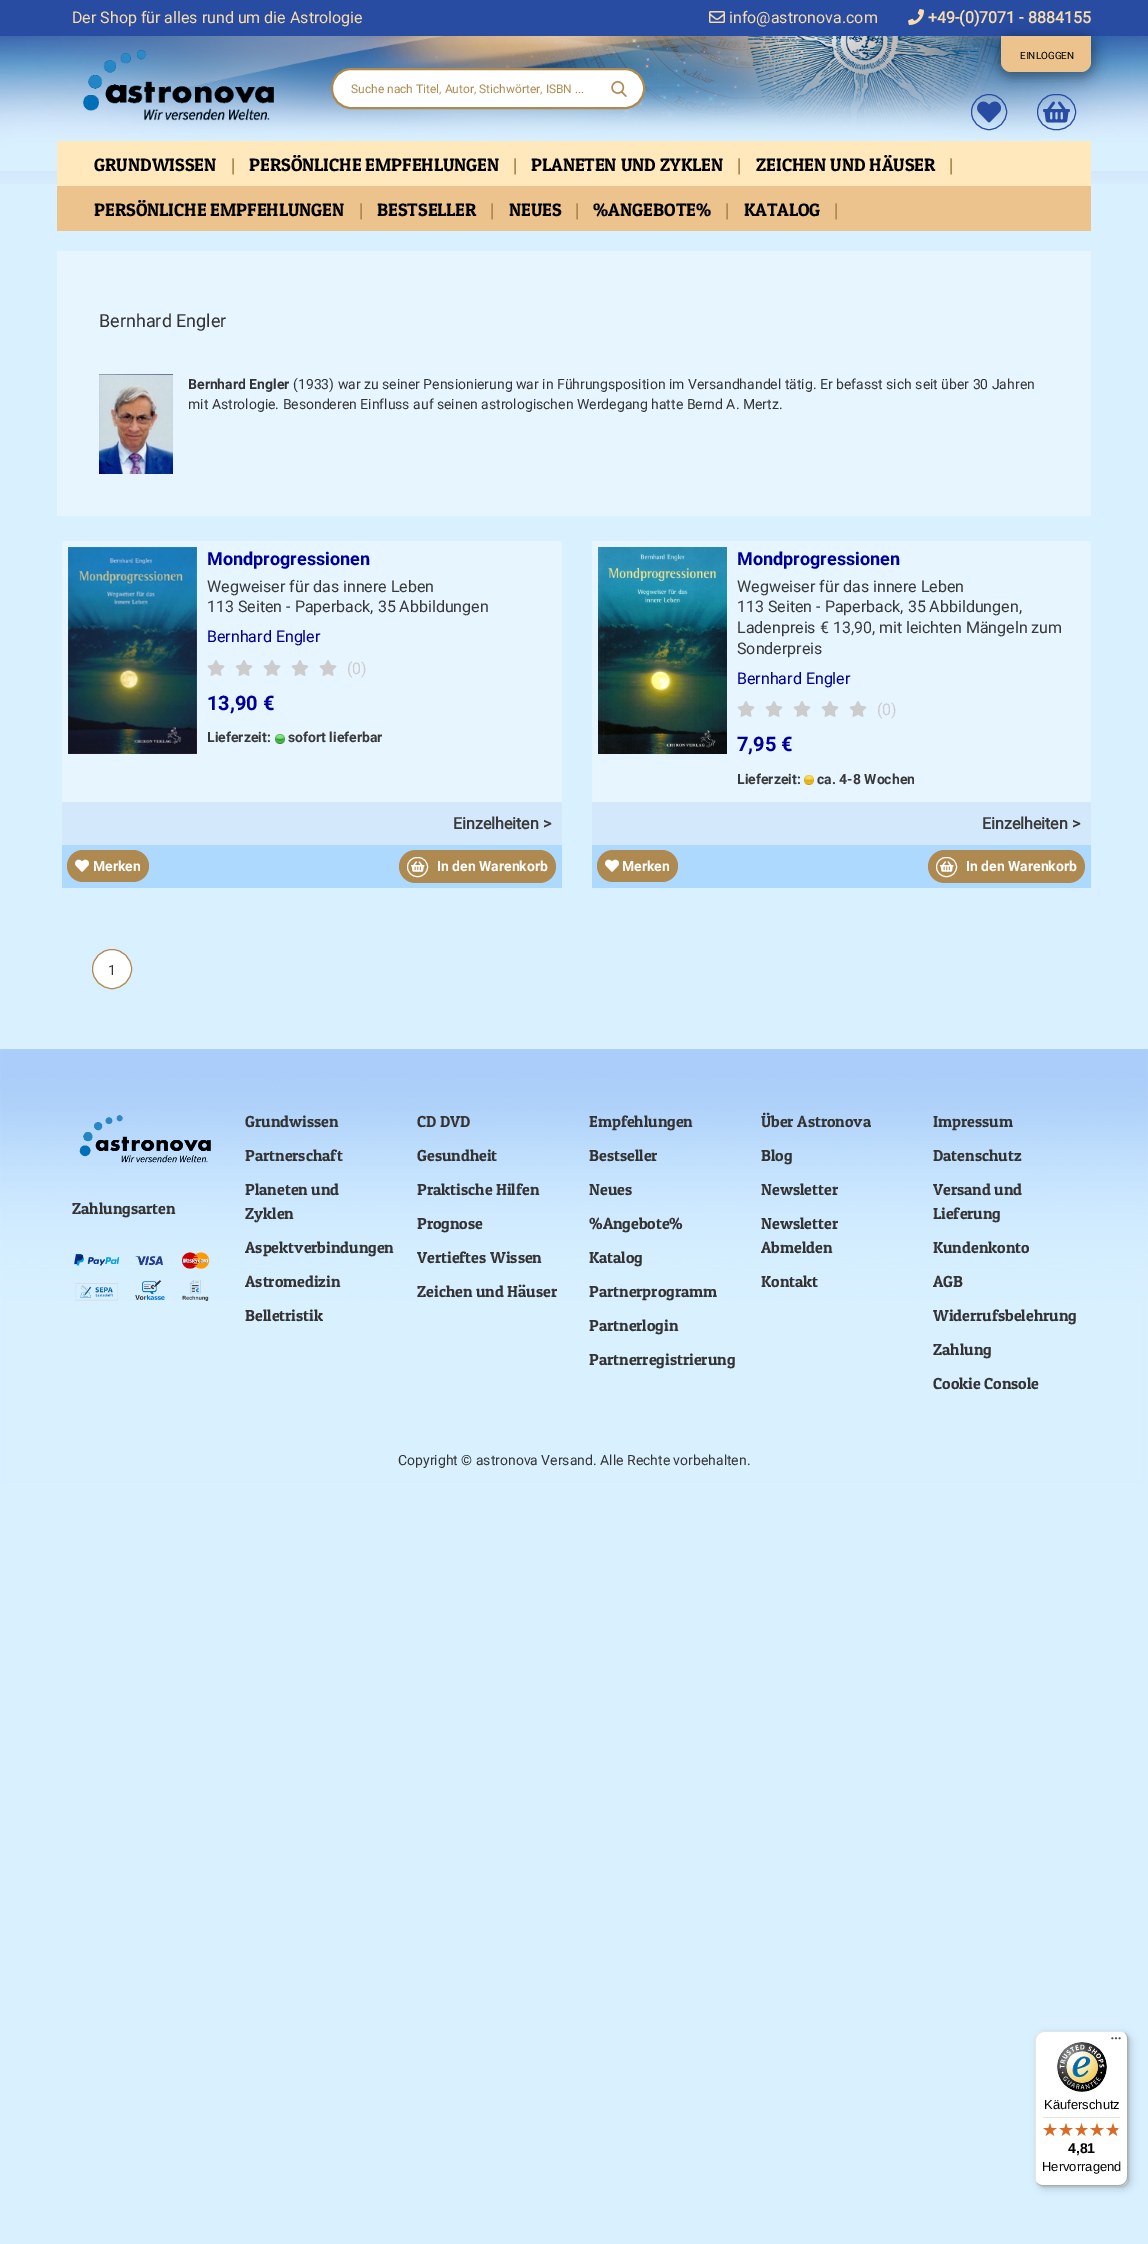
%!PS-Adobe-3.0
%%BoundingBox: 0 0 1148 2244
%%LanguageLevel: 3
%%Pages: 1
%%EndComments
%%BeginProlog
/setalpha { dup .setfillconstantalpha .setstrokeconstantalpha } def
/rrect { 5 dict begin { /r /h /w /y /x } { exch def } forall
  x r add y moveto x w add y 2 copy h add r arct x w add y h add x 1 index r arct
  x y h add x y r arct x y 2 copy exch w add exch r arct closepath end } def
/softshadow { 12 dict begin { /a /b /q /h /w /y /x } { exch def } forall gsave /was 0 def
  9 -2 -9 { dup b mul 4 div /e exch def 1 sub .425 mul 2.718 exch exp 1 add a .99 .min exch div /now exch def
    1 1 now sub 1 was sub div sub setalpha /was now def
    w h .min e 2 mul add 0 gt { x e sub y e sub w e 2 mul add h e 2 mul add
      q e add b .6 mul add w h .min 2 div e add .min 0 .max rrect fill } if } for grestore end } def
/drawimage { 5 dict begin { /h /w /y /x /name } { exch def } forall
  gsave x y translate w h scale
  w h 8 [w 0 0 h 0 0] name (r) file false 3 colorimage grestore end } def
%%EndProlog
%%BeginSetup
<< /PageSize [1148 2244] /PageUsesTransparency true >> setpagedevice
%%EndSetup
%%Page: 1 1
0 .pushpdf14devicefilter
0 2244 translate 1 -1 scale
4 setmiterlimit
0.847 0.941 1 setrgbcolor
0 0 1148 2244 rectfill
(images/1.raw) 0 171 1148 13 drawimage
(images/2.raw) 0 36 1148 135 drawimage
0.153 0.298 0.635 setrgbcolor
0 0 1148 36 rectfill
(images/3.raw) 709 11 16 12 drawimage
(images/4.raw) 908 9 16 16 drawimage
(images/5.raw) 82 50 192 71 drawimage
0 setgray
999 36 96 42 13 6 0.34 softshadow
0.925 0.765 0.553 setrgbcolor
newpath 1001 36 moveto 1091 36 lineto 1091 62 lineto 1091 67.5 1086.5 72 1081 72 curveto 1011 72 lineto 1005.5 72 1001 67.5 1001 62 curveto closepath fill
0.153 0.298 0.635 setrgbcolor
newpath 989 112 17.5 0 360 arc closepath stroke
(images/6.raw) 977 101 24 22 drawimage
1037.5 94.5 38 35 17.5 rrect stroke
(images/7.raw) 1043 101 27 22 drawimage
1 setgray
332 69 312 39 19 rrect gsave fill grestore
0.686 0.541 0.314 setrgbcolor
2 setlinewidth
stroke
(images/8.raw) 611 81 16 16 drawimage
1 0.91 0.737 setrgbcolor
57 141 1034 45 rectfill
0.925 0.765 0.553 setrgbcolor
57 186 1034 45 rectfill
0.902 0.961 1 setrgbcolor
57 251 1034 265 rectfill
(images/9.raw) 99 374 74 100 drawimage
62 541 500 261 rectfill
(images/10.raw) 68 547 129 207 drawimage
(images/11.raw) 207 660 18 16 drawimage
(images/11.raw) 235 660 18 16 drawimage
(images/11.raw) 263 660 18 16 drawimage
(images/11.raw) 291 660 18 16 drawimage
(images/11.raw) 319 660 18 16 drawimage
(images/12.raw) 275 734 10 10 drawimage
0.827 0.91 0.98 setrgbcolor
62 802 500 43 rectfill
0.678 0.851 1 setrgbcolor
62 845 500 43 rectfill
0.686 0.541 0.314 setrgbcolor
67 850 82 32 16 rrect fill
(images/13.raw) 75 859 14 13 drawimage
399 850 157 33 16.5 rrect fill
1 setgray
1 setlinewidth
407.5 857.5 20 19 9.5 rrect stroke
(images/14.raw) 411 861 14 11 drawimage
0.902 0.961 1 setrgbcolor
592 541 499 261 rectfill
(images/15.raw) 598 547 129 207 drawimage
(images/11.raw) 737 701 18 16 drawimage
(images/11.raw) 765 701 18 16 drawimage
(images/11.raw) 793 701 18 16 drawimage
(images/11.raw) 821 701 18 16 drawimage
(images/11.raw) 849 701 18 16 drawimage
(images/16.raw) 804 775 10 10 drawimage
0.827 0.91 0.98 setrgbcolor
592 802 499 43 rectfill
0.678 0.851 1 setrgbcolor
592 845 499 43 rectfill
0.686 0.541 0.314 setrgbcolor
597 850 81 32 16 rrect fill
(images/13.raw) 605 859 14 13 drawimage
928 850 157 33 16.5 rrect fill
1 setgray
936.5 857.5 20 19 9.5 rrect stroke
(images/14.raw) 940 861 14 11 drawimage
newpath 112 969 19.5 0 360 arc closepath gsave fill grestore
0.686 0.541 0.314 setrgbcolor
stroke
(images/17.raw) 0 1049 1148 436 drawimage
(images/18.raw) 79 1115 132 48 drawimage
(images/19.raw) 74 1252 136 49 drawimage
0 setgray
1038 2034 93 155 8 4 0.15 softshadow
1036 2032 93 155 8 1 0.15 softshadow
1 setgray
1035 2031 93 155 8 rrect fill
0.1 setalpha
0 setgray
newpath 1044 2032 moveto 1121 2032 lineto 1123 2032 1125 2033 1127 2035 curveto 1125 2033 1123 2031 1120 2031 curveto 1043 2031 lineto 1039 2031 1035 2035 1035 2039 curveto 1035 2178 lineto 1035 2181 1037 2183 1039 2185 curveto 1037 2183 1036 2181 1036 2179 curveto 1036 2040 lineto 1036 2036 1040 2032 1044 2032 curveto closepath fill
0.2 setalpha
newpath 1036 2182 moveto 1038 2184 1040 2186 1043 2186 curveto 1120 2186 lineto 1124 2186 1128 2182 1128 2178 curveto 1128 2039 lineto 1128 2036 1126 2034 1124 2032 curveto 1126 2034 1127 2036 1127 2038 curveto 1127 2177 lineto 1127 2181 1123 2185 1119 2185 curveto 1042 2185 lineto 1040 2185 1038 2184 1036 2182 curveto closepath fill
0.196 setgray
newpath 1037 2183 moveto 1038 2185 1041 2186 1043 2186 curveto 1120 2186 lineto 1124 2186 1128 2182 1128 2178 curveto 1128 2039 lineto 1128 2037 1127 2034 1125 2033 curveto 1126 2034 1127 2036 1127 2038 curveto 1127 2177 lineto 1127 2182 1124 2185 1119 2185 curveto 1042 2185 lineto 1040 2185 1038 2184 1037 2183 curveto closepath fill
1 setalpha
(images/20.raw) 1111 2037 10 3 drawimage
0.3 setalpha
1 setgray
newpath 1120 2186 moveto 1124.5 2186 1128 2182.5 1128 2178 curveto 1128 2182 1124 2186 1120 2186 curveto closepath fill
1 setalpha
(images/21.raw) 1057 2042 50 50 drawimage
0.898 setgray
1043 2117 77 1 rectfill
(images/22.raw) 1043 2123 14 13 drawimage
(images/22.raw) 1059 2123 14 13 drawimage
(images/23.raw) 1075 2123 13 13 drawimage
(images/22.raw) 1090 2123 14 13 drawimage
(images/22.raw) 1106 2123 14 13 drawimage
(images/24.raw) 1043 2123 14 13 drawimage
(images/24.raw) 1059 2123 14 13 drawimage
(images/25.raw) 1075 2123 13 13 drawimage
(images/24.raw) 1090 2123 14 13 drawimage
(images/26.raw) 1106 2123 12 13 drawimage
/Roboto-Regular [16 0 0 -16 0 0] selectfont
0.973 0.863 0.678 setrgbcolor
72 23 moveto (Der Shop für alles rund um die Astrologie) show
729 23 moveto (info@astronova.com) show
/Roboto-Bold [16 0 0 -16 0 0] selectfont
928 23 moveto (+49-\(0\)7071 - 8884155) show
/Roboto-Regular [10 0 0 -10 0 0] selectfont
0 setgray
1020 59 moveto (EINLOGGEN) show
/Roboto-Regular [12 0 0 -12 0 0] selectfont
0.686 0.541 0.314 setrgbcolor
351 93 moveto (Suche nach Titel, Autor, Stichwörter, ISBN ...) show
/PatuaOne-Regular [18 0 0 -18 0 0] selectfont
0 setgray
94 171 moveto (GRUNDWISSEN) show
0.686 0.541 0.314 setrgbcolor
231 171 moveto (|) show
0 setgray
249 171 moveto (PERSÖNLICHE EMPFEHLUNGEN) show
0.686 0.541 0.314 setrgbcolor
513 171 moveto (|) show
0 setgray
531 171 moveto (PLANETEN UND ZYKLEN) show
0.686 0.541 0.314 setrgbcolor
737 171 moveto (|) show
0 setgray
756 171 moveto (ZEICHEN UND HÄUSER) show
0.686 0.541 0.314 setrgbcolor
949 171 moveto (|) show
0 setgray
94 216 moveto (PERSÖNLICHE EMPFEHLUNGEN) show
0.686 0.541 0.314 setrgbcolor
359 216 moveto (|) show
0 setgray
377 216 moveto (BESTSELLER) show
0.686 0.541 0.314 setrgbcolor
490 216 moveto (|) show
0 setgray
509 216 moveto (NEUES) show
0.686 0.541 0.314 setrgbcolor
575 216 moveto (|) show
0 setgray
593 216 moveto (%ANGEBOTE%) show
0.686 0.541 0.314 setrgbcolor
725 216 moveto (|) show
0 setgray
744 216 moveto (KATALOG) show
0.686 0.541 0.314 setrgbcolor
834 216 moveto (|) show
/Roboto-Regular [18 0 0 -18 0 0] selectfont
0.2 setgray
99 327 moveto (Bernhard Engler) show
/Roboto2-Bold [14 0 0 -14 0 0] selectfont
188 389 moveto (Bernhard Engler) show
/Roboto-Regular [14 0 0 -14 0 0] selectfont
293 389 moveto (\(1933\) war zu seiner Pensionierung war in Führungsposition im Versandhandel tätig. Er befasst sich seit über 30 Jahren) show
188 409 moveto (mit Astrologie. Besonderen Einfluss auf seinen astrologischen Werdegang hatte Bernd A. Mertz.) show
/Roboto2-Bold [18 0 0 -18 0 0] selectfont
0 0 0.596 setrgbcolor
207 565 moveto (Mondprogressionen) show
/Roboto-Regular [16 0 0 -16 0 0] selectfont
0.224 setgray
207 592 moveto (Wegweiser für das innere Leben) show
207 612 moveto (113 Seiten - Paperback, 35 Abbildungen) show
0 0 0.596 setrgbcolor
207 642 moveto (Bernhard Engler) show
0.8 setgray
347 674 moveto (\(0\)) show
/Roboto2-Bold [20 0 0 -20 0 0] selectfont
0 0 0.596 setrgbcolor
207 710 moveto (13,90 €) show
/Roboto2-Bold [14 0 0 -14 0 0] selectfont
0.224 setgray
207 742 moveto (Lieferzeit:) show
288 742 moveto (sofort lieferbar) show
/Roboto-Bold [16 0 0 -16 0 0] selectfont
453 829 moveto (Einzelheiten >) show
/Roboto2-Bold [14 0 0 -14 0 0] selectfont
1 setgray
93 871 moveto (Merken) show
437 871 moveto (In den Warenkorb) show
/Roboto2-Bold [18 0 0 -18 0 0] selectfont
0 0 0.596 setrgbcolor
737 565 moveto (Mondprogressionen) show
/Roboto-Regular [16 0 0 -16 0 0] selectfont
0.224 setgray
737 592 moveto (Wegweiser für das innere Leben) show
737 612 moveto (113 Seiten - Paperback, 35 Abbildungen,) show
737 633 moveto (Ladenpreis € 13,90, mit leichten Mängeln zum) show
737 654 moveto (Sonderpreis) show
0 0 0.596 setrgbcolor
737 684 moveto (Bernhard Engler) show
0.8 setgray
877 715 moveto (\(0\)) show
/Roboto2-Bold [20 0 0 -20 0 0] selectfont
0 0 0.596 setrgbcolor
737 751 moveto (7,95 €) show
/Roboto2-Bold [14 0 0 -14 0 0] selectfont
0.224 setgray
737 784 moveto (Lieferzeit:) show
817 784 moveto (ca. 4-8 Wochen) show
/Roboto-Bold [16 0 0 -16 0 0] selectfont
982 829 moveto (Einzelheiten >) show
/Roboto2-Bold [14 0 0 -14 0 0] selectfont
1 setgray
622 871 moveto (Merken) show
966 871 moveto (In den Warenkorb) show
/Roboto-Regular [14 0 0 -14 0 0] selectfont
0.2 setgray
108 975 moveto (1) show
/PatuaOne-Regular [16 0 0 -16 0 0] selectfont
72 1214 moveto (Zahlungsarten) show
245 1127 moveto (Grundwissen) show
245 1161 moveto (Partnerschaft) show
245 1195 moveto (Planeten und) show
245 1219 moveto (Zyklen) show
245 1253 moveto (Aspektverbindungen) show
245 1287 moveto (Astromedizin) show
245 1321 moveto (Belletristik) show
417 1127 moveto (CD DVD) show
417 1161 moveto (Gesundheit) show
417 1195 moveto (Praktische Hilfen) show
417 1229 moveto (Prognose) show
417 1263 moveto (Vertieftes Wissen) show
417 1297 moveto (Zeichen und Häuser) show
589 1127 moveto (Empfehlungen) show
589 1161 moveto (Bestseller) show
589 1195 moveto (Neues) show
589 1229 moveto (%Angebote%) show
589 1263 moveto (Katalog) show
589 1297 moveto (Partnerprogramm) show
589 1331 moveto (Partnerlogin) show
589 1365 moveto (Partnerregistrierung) show
761 1127 moveto (Über Astronova) show
761 1161 moveto (Blog) show
761 1195 moveto (Newsletter) show
761 1229 moveto (Newsletter) show
761 1253 moveto (Abmelden) show
761 1287 moveto (Kontakt) show
933 1127 moveto (Impressum) show
933 1161 moveto (Datenschutz) show
933 1195 moveto (Versand und) show
933 1219 moveto (Lieferung) show
933 1253 moveto (Kundenkonto) show
933 1287 moveto (AGB) show
933 1321 moveto (Widerrufsbelehrung) show
933 1355 moveto (Zahlung) show
933 1389 moveto (Cookie Console) show
/Roboto-Regular [14 0 0 -14 0 0] selectfont
398 1465 moveto (Copyright © astronova Versand. Alle Rechte vorbehalten.) show
/LiberationSans-Regular [13 0 0 -13 0 0] selectfont
0 setgray
1044 2109 moveto (Käuferschutz) show
/LiberationSans-Bold [14 0 0 -14 0 0] selectfont
1068 2153 moveto (4,81) show
/LiberationSans-Regular [13 0 0 -13 0 0] selectfont
1042 2171 moveto (Hervorragend) show
.poppdf14devicefilter showpage
%%EOF
